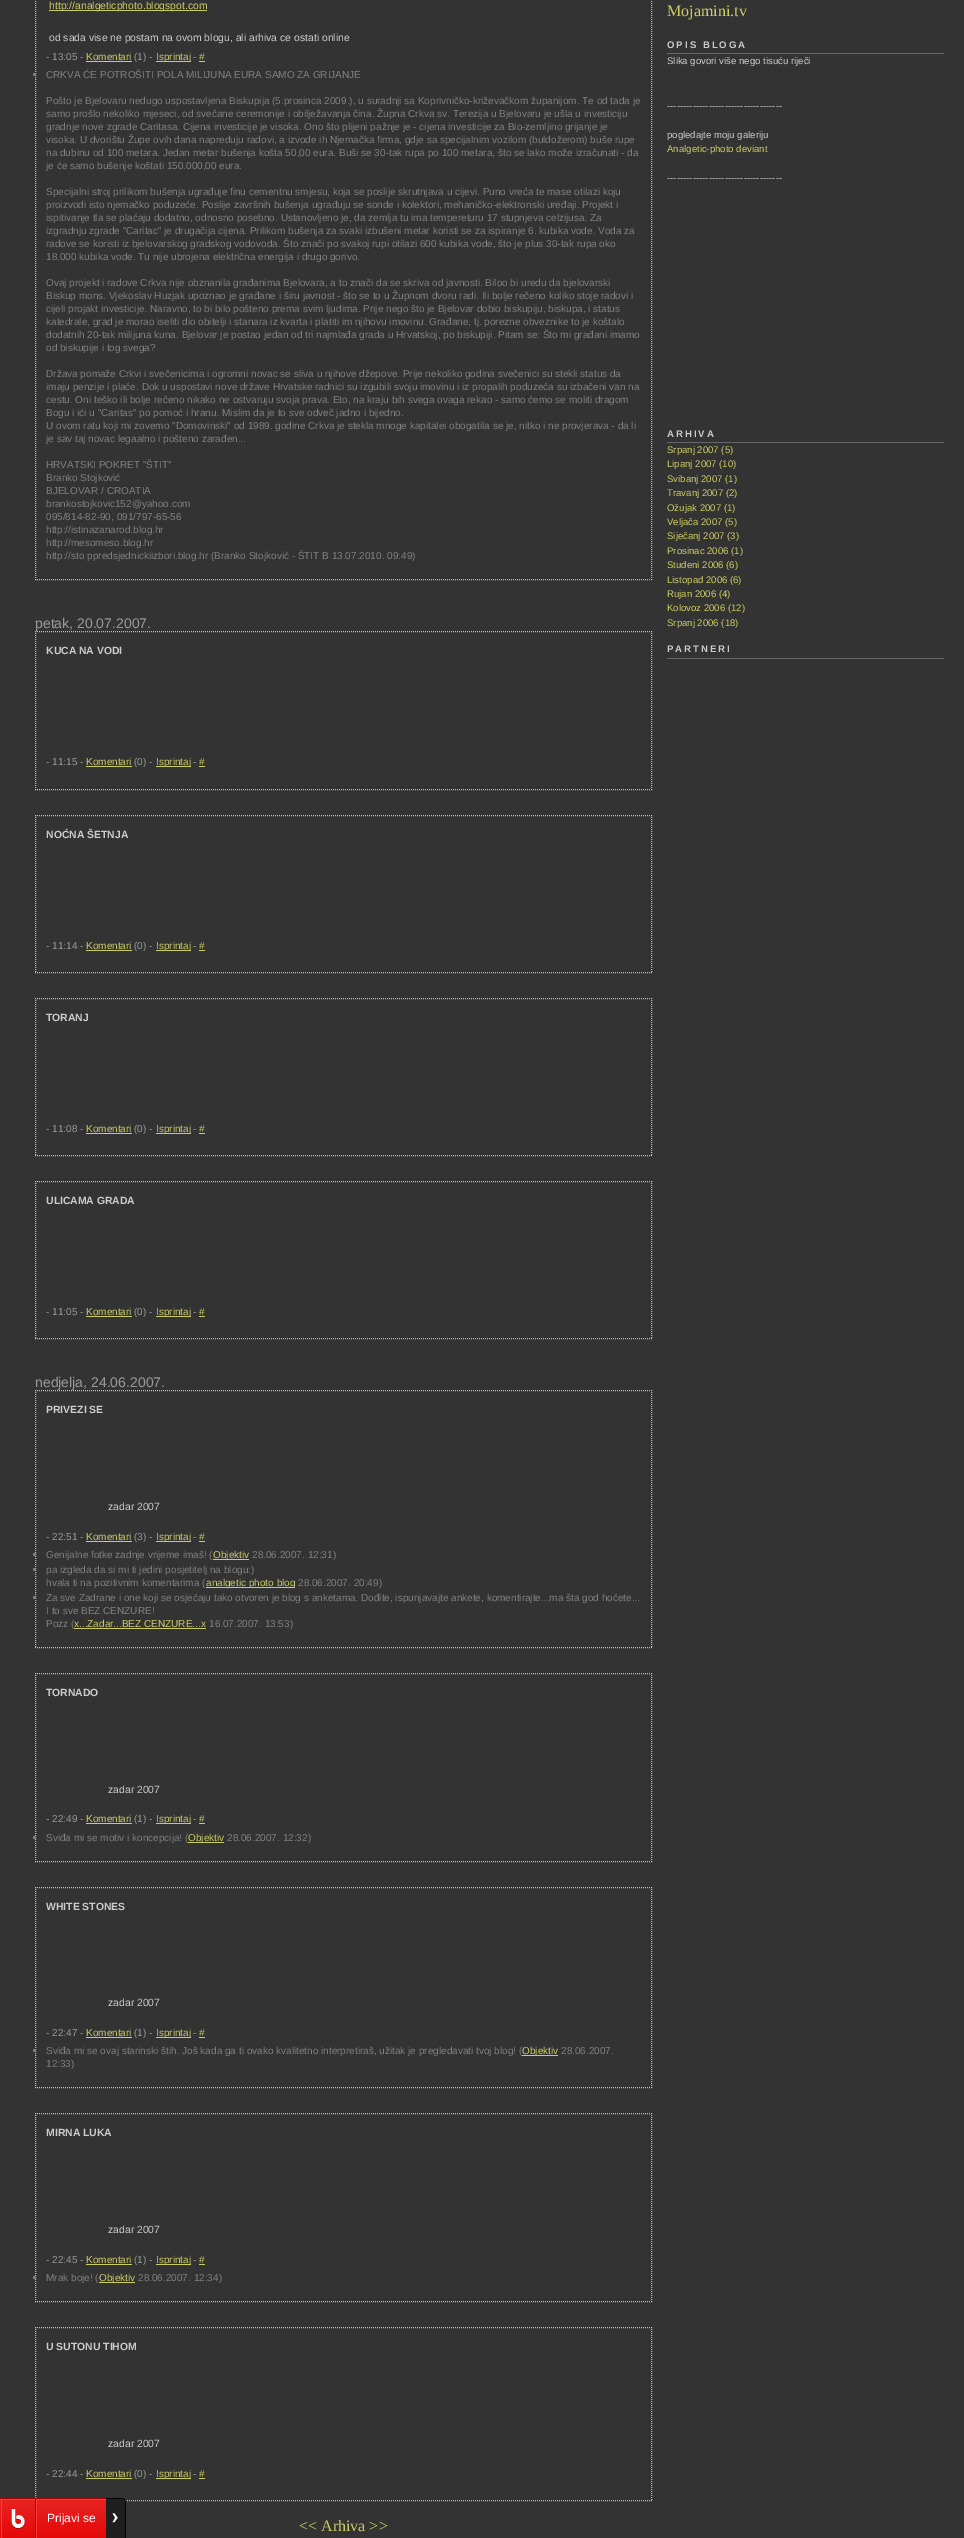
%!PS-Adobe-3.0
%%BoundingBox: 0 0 964 2538
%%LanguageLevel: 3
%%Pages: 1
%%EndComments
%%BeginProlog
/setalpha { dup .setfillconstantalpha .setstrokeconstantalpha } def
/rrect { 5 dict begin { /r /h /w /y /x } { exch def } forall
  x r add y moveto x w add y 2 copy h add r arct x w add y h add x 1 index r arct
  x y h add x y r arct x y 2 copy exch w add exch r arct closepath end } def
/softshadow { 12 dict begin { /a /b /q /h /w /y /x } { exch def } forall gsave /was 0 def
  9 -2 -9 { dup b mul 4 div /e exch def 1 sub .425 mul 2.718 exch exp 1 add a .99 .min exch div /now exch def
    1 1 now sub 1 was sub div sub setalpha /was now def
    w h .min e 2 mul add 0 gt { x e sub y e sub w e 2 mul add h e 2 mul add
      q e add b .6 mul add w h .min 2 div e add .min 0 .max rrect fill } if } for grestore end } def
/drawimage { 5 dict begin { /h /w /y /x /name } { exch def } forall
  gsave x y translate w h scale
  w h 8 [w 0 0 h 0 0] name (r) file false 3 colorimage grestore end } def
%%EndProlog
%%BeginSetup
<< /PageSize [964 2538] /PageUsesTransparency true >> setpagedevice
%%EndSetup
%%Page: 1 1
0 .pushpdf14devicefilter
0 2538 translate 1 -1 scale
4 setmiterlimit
0.2 setgray
0 0 964 2538 rectfill
0.753 setgray
[1 1] 0 setdash
newpath 651.5 -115 moveto 651.5 580 lineto stroke
newpath 35 579.5 moveto 652 579.5 lineto stroke
newpath 35.5 -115 moveto 35.5 580 lineto stroke
0.8 0.8 0.4 setrgbcolor
49 10 158 1 rectfill
86 61 46 1 rectfill
156 61 35 1 rectfill
199 61 6 1 rectfill
0.502 setgray
newpath 34.5 74.5 1.5 0 360 arc closepath fill
0.753 setgray
newpath 35 631.5 moveto 652 631.5 lineto stroke
newpath 651.5 631 moveto 651.5 790 lineto stroke
newpath 35 789.5 moveto 652 789.5 lineto stroke
newpath 35.5 631 moveto 35.5 790 lineto stroke
0.8 0.8 0.4 setrgbcolor
86 766 46 1 rectfill
156 766 35 1 rectfill
199 766 6 1 rectfill
0.753 setgray
newpath 35 815.5 moveto 652 815.5 lineto stroke
newpath 651.5 815 moveto 651.5 973 lineto stroke
newpath 35 972.5 moveto 652 972.5 lineto stroke
newpath 35.5 815 moveto 35.5 973 lineto stroke
0.8 0.8 0.4 setrgbcolor
86 950 46 1 rectfill
156 950 35 1 rectfill
199 950 6 1 rectfill
0.753 setgray
newpath 35 998.5 moveto 652 998.5 lineto stroke
newpath 651.5 998 moveto 651.5 1156 lineto stroke
newpath 35 1155.5 moveto 652 1155.5 lineto stroke
newpath 35.5 998 moveto 35.5 1156 lineto stroke
0.8 0.8 0.4 setrgbcolor
86 1133 46 1 rectfill
156 1133 35 1 rectfill
199 1133 6 1 rectfill
0.753 setgray
newpath 35 1181.5 moveto 652 1181.5 lineto stroke
newpath 651.5 1181 moveto 651.5 1339 lineto stroke
newpath 35 1338.5 moveto 652 1338.5 lineto stroke
newpath 35.5 1181 moveto 35.5 1339 lineto stroke
0.8 0.8 0.4 setrgbcolor
86 1316 46 1 rectfill
156 1316 35 1 rectfill
199 1316 6 1 rectfill
0.753 setgray
newpath 35 1390.5 moveto 652 1390.5 lineto stroke
newpath 651.5 1390 moveto 651.5 1648 lineto stroke
newpath 35 1647.5 moveto 652 1647.5 lineto stroke
newpath 35.5 1390 moveto 35.5 1648 lineto stroke
0.8 0.8 0.4 setrgbcolor
86 1541 46 1 rectfill
156 1541 35 1 rectfill
199 1541 6 1 rectfill
0.502 setgray
newpath 34.5 1554.5 1.5 0 360 arc closepath fill
0.8 0.8 0.4 setrgbcolor
213 1559 36 1 rectfill
0.502 setgray
newpath 34.5 1569.5 1.5 0 360 arc closepath fill
0.8 0.8 0.4 setrgbcolor
206 1587 89 1 rectfill
0.502 setgray
newpath 34.5 1597.5 1.5 0 360 arc closepath fill
0.753 setgray
newpath 35 1673.5 moveto 652 1673.5 lineto stroke
newpath 651.5 1673 moveto 651.5 1862 lineto stroke
newpath 35 1861.5 moveto 652 1861.5 lineto stroke
newpath 35.5 1673 moveto 35.5 1862 lineto stroke
0.8 0.8 0.4 setrgbcolor
86 1823 46 1 rectfill
156 1823 35 1 rectfill
199 1823 6 1 rectfill
0.502 setgray
newpath 34.5 1837.5 1.5 0 360 arc closepath fill
0.753 setgray
newpath 35 1887.5 moveto 652 1887.5 lineto stroke
newpath 651.5 1887 moveto 651.5 2088 lineto stroke
newpath 35 2087.5 moveto 652 2087.5 lineto stroke
newpath 35.5 1887 moveto 35.5 2088 lineto stroke
0.8 0.8 0.4 setrgbcolor
86 2037 46 1 rectfill
156 2037 35 1 rectfill
199 2037 6 1 rectfill
0.502 setgray
newpath 34.5 2050.5 1.5 0 360 arc closepath fill
0.753 setgray
newpath 35 2113.5 moveto 652 2113.5 lineto stroke
newpath 651.5 2113 moveto 651.5 2302 lineto stroke
newpath 35 2301.5 moveto 652 2301.5 lineto stroke
newpath 35.5 2113 moveto 35.5 2302 lineto stroke
0.8 0.8 0.4 setrgbcolor
86 2264 46 1 rectfill
156 2264 35 1 rectfill
199 2264 6 1 rectfill
0.502 setgray
newpath 34.5 2277.5 1.5 0 360 arc closepath fill
0.8 0.8 0.4 setrgbcolor
99 2282 36 1 rectfill
0.753 setgray
newpath 35 2327.5 moveto 652 2327.5 lineto stroke
newpath 651.5 2327 moveto 651.5 2501 lineto stroke
newpath 35 2500.5 moveto 652 2500.5 lineto stroke
newpath 35.5 2327 moveto 35.5 2501 lineto stroke
0.8 0.8 0.4 setrgbcolor
86 2478 46 1 rectfill
156 2478 35 1 rectfill
199 2478 6 1 rectfill
0.4 setgray
667 53 277 1 rectfill
667 442 277 1 rectfill
667 658 277 1 rectfill
0.2 setgray
0 2500 106 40 0 2.5 1 softshadow
(images/1.raw) 0 2498 106 40 drawimage
(images/2.raw) 1 2499 36 39 drawimage
(images/3.raw) 106 2498 20 40 drawimage
/LiberationSans-Regular [10.4 0 0 -10.4 0 0] selectfont
0.8 0.8 0.4 setrgbcolor
49 9 moveto (http://analgeticphoto.blogspot.com) show
0.8 setgray
49 41 moveto (od sada vise ne postam na ovom blogu, ali arhiva ce ostati online) show
/LiberationSans-Regular [10 0 0 -10 0 0] selectfont
0.6 setgray
46 60 moveto (- 13:05 -) show
0.8 0.8 0.4 setrgbcolor
86 60 moveto (Komentari) show
0.6 setgray
134 60 moveto (\(1\) -) show
0.8 0.8 0.4 setrgbcolor
156 60 moveto (Isprintaj) show
0.6 setgray
193 60 moveto (-) show
0.8 0.8 0.4 setrgbcolor
199 60 moveto (#) show
0.502 setgray
46 78 moveto (CRKVA ĆE POTROŠITI POLA MILIJUNA EURA SAMO ZA GRIJANJE) show
46 104 moveto (Pošto je Bjelovaru nedugo uspostavljena Biskupija \(5.prosinca 2009.\), u suradnji sa Koprivničko-križevačkom županijom. Te od tada je) show
46 117 moveto (samo prošlo nekoliko mjeseci, od svečane ceremonije i obilježavanja čina. Župna Crkva sv. Terezija u Bjelovaru je ušla u investiciju) show
46 130 moveto (gradnje nove zgrade Caritasa. Cijena investicije je visoka. Ono što plijeni pažnje je - cijena investicije za Bio-zemljino grijanje je) show
46 143 moveto (visoka. U dvorištu Župe ovih dana napreduju radovi, a izvode ih Njemačka firma, gdje sa specijalnim vozilom \(buldožerom\) buše rupe) show
46 156 moveto (na dubinu od 100 metara. Jedan metar bušenja košta 50,00 eura. Buši se 30-tak rupa po 100 metara, što se lako može izračunati - da) show
46 169 moveto (je će samo bušenje koštati 150.000,00 eura.) show
46 195 moveto (Specijalni stroj prilikom bušenja ugrađuje finu cementnu smjesu, koja se poslije skrutnjava u cijevi. Puno vreća te mase otilazi koju) show
46 208 moveto (proizvodi isto njemačko poduzeće. Poslije završnih bušenja ugrađuju se sonde i kolektori, mehaničko-elektronski uređaji. Projekt i) show
46 221 moveto (ispitivanje tla se plaćaju dodatno, odnosno posebno. Ustanovljeno je, da zemlja tu ima tempereturu 17 stupnjeva celzijusa. Za) show
46 234 moveto (izgradnju zgrade "Caritac" je drugačija cijena. Prilikom bušenja za svaki izbušeni metar koristi se za ispiranje 6. kubika vode. Voda za) show
46 247 moveto (radove se koristi iz bjelovarskog gradskog vodovoda. Što znači po svakoj rupi otilazi 600 kubika vode, što je plus 30-tak rupa oko) show
46 260 moveto (18.000 kubika vode. Tu nije ubrojena električna energija i drugo gorivo.) show
46 286 moveto (Ovaj projekt i radove Crkva nije obznanila građanima Bjelovara, a to znači da se skriva od javnosti. Biloo bi uredu da bjelovarski) show
46 299 moveto (Biskup mons. Vjekoslav Huzjak upoznao je građane i širu javnost - što se to u Župnom dvoru radi. Ili bolje rečeno koliko stoje radovi i) show
46 312 moveto (cijeli projakt investicije. Naravno, to bi bilo pošteno prema svim ljudima. Prije nego što je Bjelovar dobio biskupiju, biskupa, i status) show
46 325 moveto (katedrale, grad je morao iseliti dio obitelji i stanara iz kvarta i platiti im njihovu imovinu. Građane, tj. porezne obveznike to je koštalo) show
46 338 moveto (dodatnih 20-tak milijuna kuna. Bjelovar je postao jedan od tri najmlađa grada u Hrvatskoj, po biskupiji. Pitam se: Što mi građani imamo) show
46 351 moveto (od biskupije i tog svega?) show
46 377 moveto (Država pomaže Crkvi i svečenicima i ogromni novac se sliva u njihove džepove. Prije nekoliko godina svečenici su stekli status da) show
46 390 moveto (imaju penzije i plaće. Dok u uspostavi nove države Hrvatske radnici su izgubili svoju imovinu i iz propalih poduzeća su izbačeni van na) show
46 403 moveto (cestu. Oni teško ili bolje rečeno nikako ne ostvaruju svoja prava. Eto, na kraju bih svega ovaga rekao - samo ćemo se moliti dragom) show
46 416 moveto (Bogu i ići u "Caritas" po pomoć i hranu. Mislim da je to sve odveč jadno i bijedno.) show
46 429 moveto (U ovom ratu koji mi zovemo "Domovinski" od 1989. godine Crkva je stekla mnoge kapitalei obogatila se je, nitko i ne provjerava - da li) show
46 442 moveto (je sav taj novac legaalno i pošteno zarađen...) show
46 468 moveto (HRVATSKI POKRET "ŠTIT") show
46 481 moveto (Branko Stojković) show
46 494 moveto (BJELOVAR / CROATIA) show
46 507 moveto (brankostojkovic152@yahoo.com) show
46 520 moveto (095/814-82-90, 091/797-65-56) show
46 533 moveto (http://istinazanarod.blog.hr) show
46 546 moveto (http://mesomeso.blog.hr) show
46 559 moveto (http://sto ppredsjednickiizbori.blog.hr \(Branko Stojković - ŠTIT B 13.07.2010. 09:49\)) show
/LiberationSans-Regular [14 0 0 -14 0 0] selectfont
0.6 setgray
35 628 moveto (petak, 20.07.2007.) show
/LiberationSans-Bold [10.4 0 0 -10.4 0 0] selectfont
0.8 setgray
46 654 moveto (KUCA NA VODI) show
/LiberationSans-Regular [10 0 0 -10 0 0] selectfont
0.6 setgray
46 765 moveto (- 11:15 -) show
0.8 0.8 0.4 setrgbcolor
86 765 moveto (Komentari) show
0.6 setgray
134 765 moveto (\(0\) -) show
0.8 0.8 0.4 setrgbcolor
156 765 moveto (Isprintaj) show
0.6 setgray
193 765 moveto (-) show
0.8 0.8 0.4 setrgbcolor
199 765 moveto (#) show
/LiberationSans-Bold [10.4 0 0 -10.4 0 0] selectfont
0.8 setgray
46 838 moveto (NOĆNA ŠETNJA) show
/LiberationSans-Regular [10 0 0 -10 0 0] selectfont
0.6 setgray
46 949 moveto (- 11:14 -) show
0.8 0.8 0.4 setrgbcolor
86 949 moveto (Komentari) show
0.6 setgray
134 949 moveto (\(0\) -) show
0.8 0.8 0.4 setrgbcolor
156 949 moveto (Isprintaj) show
0.6 setgray
193 949 moveto (-) show
0.8 0.8 0.4 setrgbcolor
199 949 moveto (#) show
/LiberationSans-Bold [10.4 0 0 -10.4 0 0] selectfont
0.8 setgray
46 1021 moveto (TORANJ) show
/LiberationSans-Regular [10 0 0 -10 0 0] selectfont
0.6 setgray
46 1132 moveto (- 11:08 -) show
0.8 0.8 0.4 setrgbcolor
86 1132 moveto (Komentari) show
0.6 setgray
134 1132 moveto (\(0\) -) show
0.8 0.8 0.4 setrgbcolor
156 1132 moveto (Isprintaj) show
0.6 setgray
193 1132 moveto (-) show
0.8 0.8 0.4 setrgbcolor
199 1132 moveto (#) show
/LiberationSans-Bold [10.4 0 0 -10.4 0 0] selectfont
0.8 setgray
46 1204 moveto (ULICAMA GRADA) show
/LiberationSans-Regular [10 0 0 -10 0 0] selectfont
0.6 setgray
46 1315 moveto (- 11:05 -) show
0.8 0.8 0.4 setrgbcolor
86 1315 moveto (Komentari) show
0.6 setgray
134 1315 moveto (\(0\) -) show
0.8 0.8 0.4 setrgbcolor
156 1315 moveto (Isprintaj) show
0.6 setgray
193 1315 moveto (-) show
0.8 0.8 0.4 setrgbcolor
199 1315 moveto (#) show
/LiberationSans-Regular [14 0 0 -14 0 0] selectfont
0.6 setgray
35 1387 moveto (nedjelja, 24.06.2007.) show
/LiberationSans-Bold [10.4 0 0 -10.4 0 0] selectfont
0.8 setgray
46 1413 moveto (PRIVEZI SE) show
/LiberationSans-Regular [10.4 0 0 -10.4 0 0] selectfont
108 1510 moveto (zadar 2007) show
/LiberationSans-Regular [10 0 0 -10 0 0] selectfont
0.6 setgray
46 1540 moveto (- 22:51 -) show
0.8 0.8 0.4 setrgbcolor
86 1540 moveto (Komentari) show
0.6 setgray
134 1540 moveto (\(3\) -) show
0.8 0.8 0.4 setrgbcolor
156 1540 moveto (Isprintaj) show
0.6 setgray
193 1540 moveto (-) show
0.8 0.8 0.4 setrgbcolor
199 1540 moveto (#) show
0.502 setgray
46 1558 moveto (Genijalne fotke zadnje vrijeme imaš! \() show
0.8 0.8 0.4 setrgbcolor
213 1558 moveto (Objektiv) show
0.502 setgray
252 1558 moveto (28.06.2007. 12:31\)) show
46 1573 moveto (pa izgleda da si mi ti jedini posjetitelj na blogu:\)) show
46 1586 moveto (hvala ti na pozitivnim komentarima \() show
0.8 0.8 0.4 setrgbcolor
206 1586 moveto (analgetic photo blog) show
0.502 setgray
298 1586 moveto (28.06.2007. 20:49\)) show
46 1601 moveto (Za sve Zadrane i one koji se osjećaju tako otvoren je blog s anketama. Dođite, ispunjavajte ankete, komentirajte...ma šta god hoćete...) show
46 1614 moveto (I to sve BEZ CENZURE!) show
46 1627 moveto (Pozz \() show
0.8 0.8 0.4 setrgbcolor
74 1627 moveto (x...Zadar...BEZ CENZURE...x) show
74 1628 132 1 rectfill
0.502 setgray
209 1627 moveto (16.07.2007. 13:53\)) show
/LiberationSans-Bold [10.4 0 0 -10.4 0 0] selectfont
0.8 setgray
46 1696 moveto (TORNADO) show
/LiberationSans-Regular [10.4 0 0 -10.4 0 0] selectfont
108 1793 moveto (zadar 2007) show
/LiberationSans-Regular [10 0 0 -10 0 0] selectfont
0.6 setgray
46 1822 moveto (- 22:49 -) show
0.8 0.8 0.4 setrgbcolor
86 1822 moveto (Komentari) show
0.6 setgray
134 1822 moveto (\(1\) -) show
0.8 0.8 0.4 setrgbcolor
156 1822 moveto (Isprintaj) show
0.6 setgray
193 1822 moveto (-) show
0.8 0.8 0.4 setrgbcolor
199 1822 moveto (#) show
0.502 setgray
46 1841 moveto (Sviđa mi se motiv i koncepcija! \() show
0.8 0.8 0.4 setrgbcolor
188 1842 36 1 rectfill
188 1841 moveto (Objektiv) show
0.502 setgray
227 1841 moveto (28.06.2007. 12:32\)) show
/LiberationSans-Bold [10.4 0 0 -10.4 0 0] selectfont
0.8 setgray
46 1910 moveto (WHITE STONES) show
/LiberationSans-Regular [10.4 0 0 -10.4 0 0] selectfont
108 2006 moveto (zadar 2007) show
/LiberationSans-Regular [10 0 0 -10 0 0] selectfont
0.6 setgray
46 2036 moveto (- 22:47 -) show
0.8 0.8 0.4 setrgbcolor
86 2036 moveto (Komentari) show
0.6 setgray
134 2036 moveto (\(1\) -) show
0.8 0.8 0.4 setrgbcolor
156 2036 moveto (Isprintaj) show
0.6 setgray
193 2036 moveto (-) show
0.8 0.8 0.4 setrgbcolor
199 2036 moveto (#) show
0.502 setgray
46 2054 moveto (Sviđa mi se ovaj starinski štih. Još kada ga ti ovako kvalitetno interpretiraš, užitak je pregledavati tvoj blog! \() show
0.8 0.8 0.4 setrgbcolor
522 2055 36 1 rectfill
522 2054 moveto (Objektiv) show
0.502 setgray
561 2054 moveto (28.06.2007.) show
46 2067 moveto (12:33\)) show
/LiberationSans-Bold [10.4 0 0 -10.4 0 0] selectfont
0.8 setgray
46 2136 moveto (MIRNA LUKA) show
/LiberationSans-Regular [10.4 0 0 -10.4 0 0] selectfont
108 2233 moveto (zadar 2007) show
/LiberationSans-Regular [10 0 0 -10 0 0] selectfont
0.6 setgray
46 2263 moveto (- 22:45 -) show
0.8 0.8 0.4 setrgbcolor
86 2263 moveto (Komentari) show
0.6 setgray
134 2263 moveto (\(1\) -) show
0.8 0.8 0.4 setrgbcolor
156 2263 moveto (Isprintaj) show
0.6 setgray
193 2263 moveto (-) show
0.8 0.8 0.4 setrgbcolor
199 2263 moveto (#) show
0.502 setgray
46 2281 moveto (Mrak boje! \() show
0.8 0.8 0.4 setrgbcolor
99 2281 moveto (Objektiv) show
0.502 setgray
138 2281 moveto (28.06.2007. 12:34\)) show
/LiberationSans-Bold [10.4 0 0 -10.4 0 0] selectfont
0.8 setgray
46 2350 moveto (U SUTONU TIHOM) show
/LiberationSans-Regular [10.4 0 0 -10.4 0 0] selectfont
108 2447 moveto (zadar 2007) show
/LiberationSans-Regular [10 0 0 -10 0 0] selectfont
0.6 setgray
46 2477 moveto (- 22:44 -) show
0.8 0.8 0.4 setrgbcolor
86 2477 moveto (Komentari) show
0.6 setgray
134 2477 moveto (\(0\) -) show
0.8 0.8 0.4 setrgbcolor
156 2477 moveto (Isprintaj) show
0.6 setgray
193 2477 moveto (-) show
0.8 0.8 0.4 setrgbcolor
199 2477 moveto (#) show
/LiberationSerif-Regular [16 0 0 -16 0 0] selectfont
299 2531 moveto (<< Arhiva >>) show
667 16 moveto (Mojamini.tv) show
/LiberationSans-Bold [9.6 0 0 -9.6 0 0] selectfont
0.8 setgray
667 48 moveto 2 0 (OPIS BLOGA) ashow
/LiberationSans-Regular [9.6 0 0 -9.6 0 0] selectfont
667 64 moveto (Slika govori više nego tisuću riječi) show
667 109 moveto (------------------------------------) show
667 138 moveto (pogledajte moju galeriju) show
0.8 0.8 0.4 setrgbcolor
667 152 moveto (Analgetic-photo deviant) show
0.8 setgray
667 181 moveto (------------------------------------) show
/LiberationSans-Bold [9.6 0 0 -9.6 0 0] selectfont
667 437 moveto 2 0 (ARHIVA) ashow
/LiberationSans-Regular [9.6 0 0 -9.6 0 0] selectfont
0.8 0.8 0.4 setrgbcolor
667 453 moveto (Srpanj 2007 \(5\)) show
667 467 moveto (Lipanj 2007 \(10\)) show
667 482 moveto (Svibanj 2007 \(1\)) show
667 496 moveto (Travanj 2007 \(2\)) show
667 511 moveto (Ožujak 2007 \(1\)) show
667 525 moveto (Veljača 2007 \(5\)) show
667 539 moveto (Siječanj 2007 \(3\)) show
667 554 moveto (Prosinac 2006 \(1\)) show
667 568 moveto (Studeni 2006 \(6\)) show
667 583 moveto (Listopad 2006 \(6\)) show
667 597 moveto (Rujan 2006 \(4\)) show
667 611 moveto (Kolovoz 2006 \(12\)) show
667 626 moveto (Srpanj 2006 \(18\)) show
/LiberationSans-Bold [9.6 0 0 -9.6 0 0] selectfont
0.8 setgray
667 652 moveto 2 0 (PARTNERI) ashow
/LiberationSans-Regular [12 0 0 -12 0 0] selectfont
1 setgray
47 2522 moveto (Prijavi se) show
.poppdf14devicefilter showpage
%%EOF
